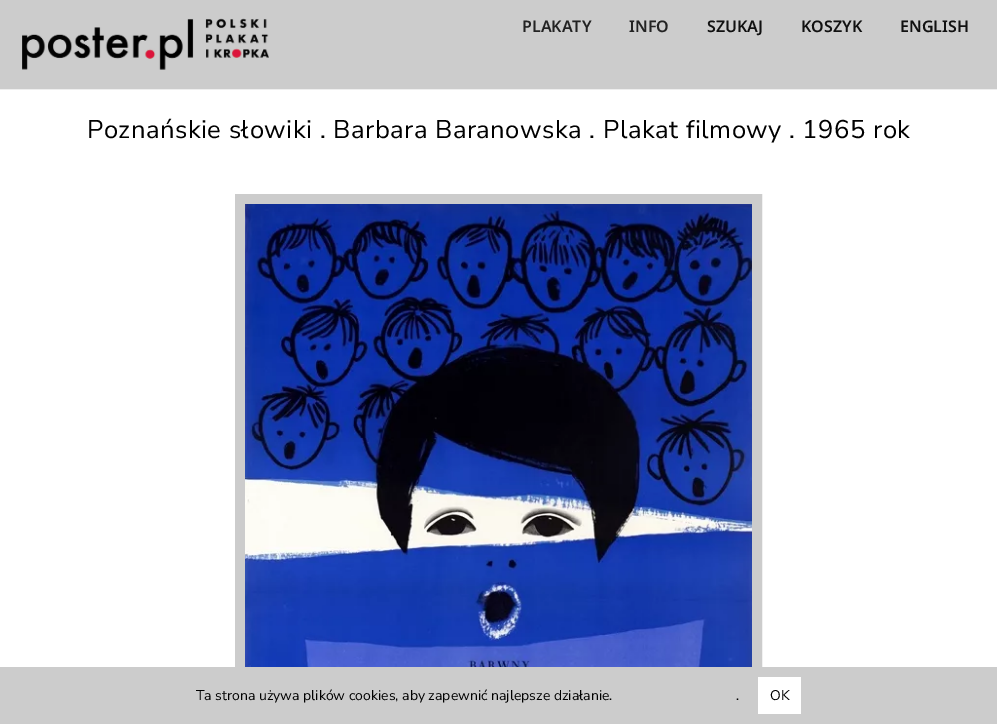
%!PS-Adobe-3.0
%%BoundingBox: 0 0 997 724
%%LanguageLevel: 3
%%Pages: 1
%%EndComments
%%BeginProlog
/drawimage { 5 dict begin { /h /w /y /x /name } { exch def } forall
  gsave x y translate w h scale
  w h 8 [w 0 0 h 0 0] name (r) file false 3 colorimage grestore end } def
%%EndProlog
%%BeginSetup
<< /PageSize [997 724] >> setpagedevice
%%EndSetup
%%Page: 1 1
0 724 translate 1 -1 scale
4 setmiterlimit
1 setgray
0 0 997 724 rectfill
0.8 setgray
0 0 997 89 rectfill
0.933 setgray
0 89 997 1 rectfill
(images/1.raw) 22 18 247 52 drawimage
0.8 setgray
10 setlinewidth
240 199 517 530 rectstroke
(images/2.raw) 245 204 507 463 drawimage
0 667 997 57 rectfill
1 setgray
758 677 43 37 rectfill
/NotoSans-SemiBold [16 0 0 -16 0 0] selectfont
0.137 setgray
522 32 moveto (PLAKATY) show
629 32 moveto (INFO) show
0.067 setgray
707 32 moveto (SZUKAJ) show
801 32 moveto (KOSZYK) show
900 32 moveto (ENGLISH) show
/NunitoSans-Regular [25.6 0 0 -25.6 0 0] selectfont
0 setgray
87 138 moveto 0.5 0 (Poznańskie słowiki . Barbara Baranowska . Plakat filmowy . 1965 rok) ashow
/NunitoSans-Regular [14 0 0 -14 0 0] selectfont
196 700 moveto (Ta strona używa plików cookies, aby zapewnić najlepsze działanie.) show
736 700 moveto (.) show
770 700 moveto (OK) show
showpage
%%EOF
